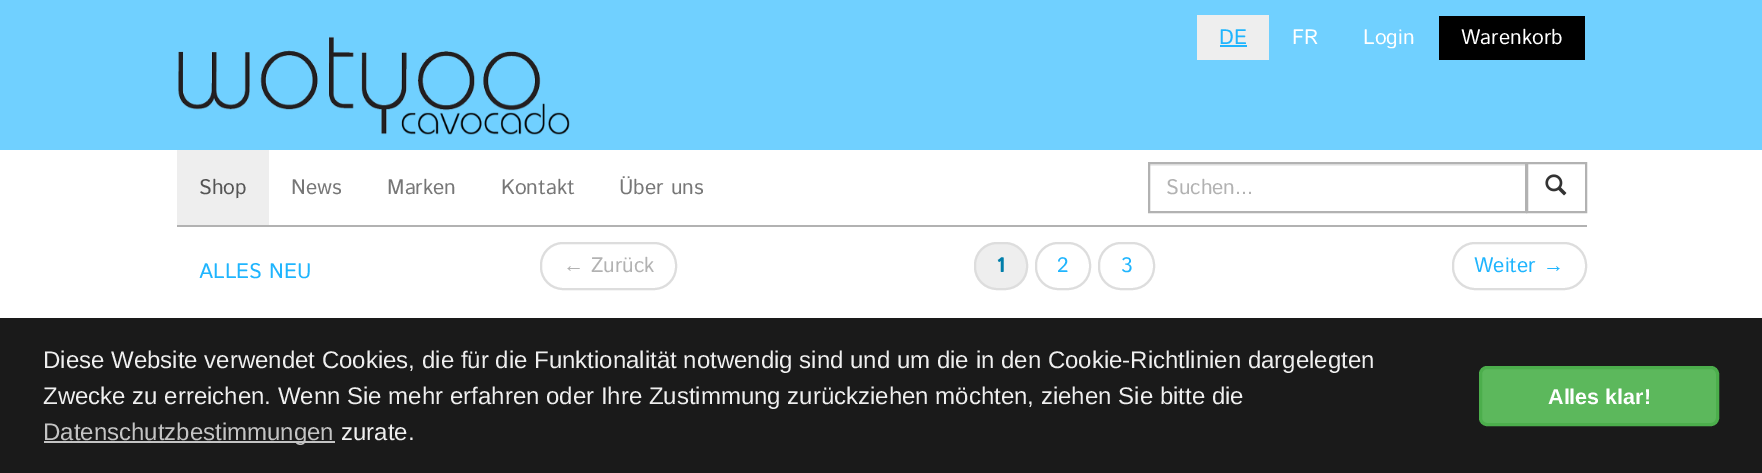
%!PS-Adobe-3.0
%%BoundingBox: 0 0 1762 473
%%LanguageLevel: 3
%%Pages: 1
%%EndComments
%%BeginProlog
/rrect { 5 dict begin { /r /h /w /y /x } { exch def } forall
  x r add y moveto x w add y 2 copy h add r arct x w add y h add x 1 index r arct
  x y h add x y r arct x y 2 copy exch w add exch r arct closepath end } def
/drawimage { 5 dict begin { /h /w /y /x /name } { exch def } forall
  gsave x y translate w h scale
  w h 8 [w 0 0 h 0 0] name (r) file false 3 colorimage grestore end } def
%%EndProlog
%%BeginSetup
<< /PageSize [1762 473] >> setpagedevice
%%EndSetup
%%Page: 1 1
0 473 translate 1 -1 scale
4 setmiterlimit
1 setgray
0 0 1762 473 rectfill
0.439 0.816 1 setrgbcolor
0 0 1762 150 rectfill
(images/1.raw) 178 36 392 99 drawimage
0.933 setgray
1197 15 72 45 rectfill
0.122 0.71 0.996 setrgbcolor
1220 45 27 2 rectfill
0 setgray
1439 16 146 44 rectfill
0.698 setgray
177 225 1410 2 rectfill
0.933 setgray
177 150 92 75 rectfill
0.925 setgray
1149 164 377 2 rectfill
0.698 setgray
2 setlinewidth
1527 163 59 49 rectstroke
1149 163 377 49 rectstroke
(images/2.raw) 1545 174 22 22 drawimage
0.867 setgray
541 243 135 46 22 rrect stroke
0.933 setgray
975 243 52 46 22 rrect gsave fill grestore
0.867 setgray
stroke
1036 243 54 46 22 rrect stroke
1099 243 55 46 22 rrect stroke
1453 243 133 46 22 rrect stroke
0.102 setgray
0 318 1762 155 rectfill
0.769 setgray
44 441 291 2 rectfill
0.361 0.722 0.361 setrgbcolor
1480.5 367.5 237 57 6.5 rrect gsave fill grestore
0.298 0.682 0.298 setrgbcolor
3 setlinewidth
stroke
/IstokWeb-Regular [21 0 0 -21 0 0] selectfont
0.122 0.71 0.996 setrgbcolor
1219 44 moveto (DE) show
1 setgray
1292 44 moveto (FR) show
1363 44 moveto (Login) show
1461 44 moveto (Warenkorb) show
0.333 setgray
199 194 moveto (Shop) show
0.467 setgray
291 194 moveto (News) show
387 194 moveto (Marken) show
501 194 moveto (Kontakt) show
619 194 moveto (Über uns) show
0.698 setgray
1166 194 moveto (Suchen...) show
0.122 0.71 0.996 setrgbcolor
199 278 moveto (ALLES NEU) show
/LiberationSans-Regular [21 0 0 -21 0 0] selectfont
0.698 setgray
563 272 moveto (←) show
/IstokWeb-Regular [21 0 0 -21 0 0] selectfont
591 272 moveto (Zurück) show
/IstokWeb-Bold [21 0 0 -21 0 0] selectfont
0 0.494 0.667 setrgbcolor
996 272 moveto (1) show
/IstokWeb-Regular [21 0 0 -21 0 0] selectfont
0.122 0.71 0.996 setrgbcolor
1057 272 moveto (2) show
1121 272 moveto (3) show
1474 272 moveto (Weiter) show
/LiberationSans-Regular [21 0 0 -21 0 0] selectfont
1543 272 moveto (→) show
/LiberationSans-Regular [24 0 0 -24 0 0] selectfont
0.937 setgray
43 368 moveto (Diese Website verwendet Cookies, die für die Funktionalität notwendig sind und um die in den Cookie-Richtlinien dargelegten) show
43 404 moveto (Zwecke zu erreichen. Wenn Sie mehr erfahren oder Ihre Zustimmung zurückziehen möchten, ziehen Sie bitte die) show
0.769 setgray
43 440 moveto (Datenschutzbestimmungen) show
0.937 setgray
341 440 moveto (zurate.) show
/LiberationSans-Bold [21.5 0 0 -21.5 0 0] selectfont
1 setgray
1548 404 moveto (Alles klar!) show
showpage
%%EOF
